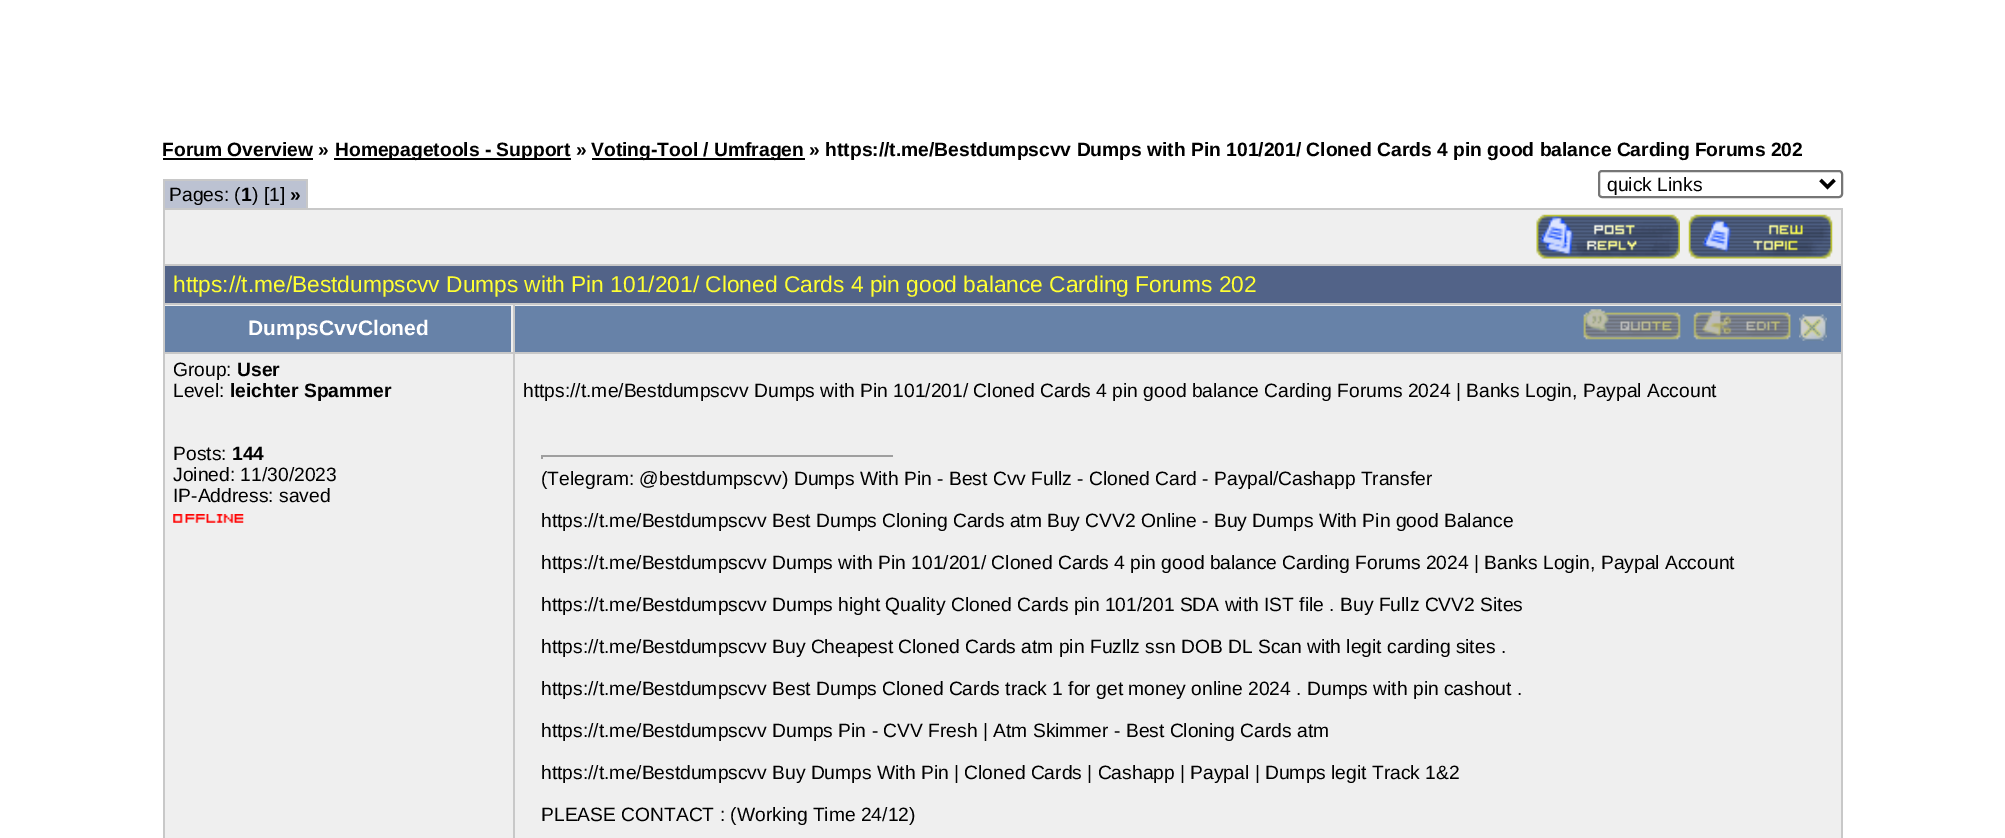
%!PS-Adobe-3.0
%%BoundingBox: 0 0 2005 838
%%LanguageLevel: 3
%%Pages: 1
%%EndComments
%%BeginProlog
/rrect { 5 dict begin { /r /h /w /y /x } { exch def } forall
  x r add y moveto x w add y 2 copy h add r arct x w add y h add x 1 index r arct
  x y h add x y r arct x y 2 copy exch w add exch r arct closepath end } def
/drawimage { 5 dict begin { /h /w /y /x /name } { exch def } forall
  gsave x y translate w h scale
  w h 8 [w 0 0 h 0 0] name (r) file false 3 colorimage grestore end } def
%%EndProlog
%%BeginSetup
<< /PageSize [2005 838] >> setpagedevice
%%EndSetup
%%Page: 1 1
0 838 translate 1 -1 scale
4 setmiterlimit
1 setgray
0 0 2005 838 rectfill
0 setgray
163 158 150 2 rectfill
334 158 237 2 rectfill
592 158 213 2 rectfill
0.737 0.761 0.824 setrgbcolor
165 181 141 27 rectfill
0.784 setgray
163 179 145 2 rectfill
306 179 2 29 rectfill
163 179 2 29 rectfill
0.463 setgray
2 setlinewidth
1599 171 243 26 3 rrect stroke
0 setgray
3.5 setlinewidth
newpath 1820.5 180 moveto 1827.5 187 lineto 1834.5 180 lineto stroke
0.937 setgray
165 210 1676 54 rectfill
0.784 setgray
163 208 1680 2 rectfill
1841 208 2 97 rectfill
163 264 1680 2 rectfill
163 208 2 97 rectfill
(images/1.raw) 1536 214 144 45 drawimage
(images/2.raw) 1688 214 145 45 drawimage
0.322 0.388 0.533 setrgbcolor
165 266 1676 37 rectfill
0.937 setgray
165 305 1676 533 rectfill
0.404 0.51 0.659 setrgbcolor
165 306 346 46 rectfill
0.784 setgray
513 303 1330 2 rectfill
513 352 1330 2 rectfill
513 352 2 486 rectfill
163 352 352 2 rectfill
513 303 2 51 rectfill
163 303 352 2 rectfill
163 352 2 486 rectfill
163 303 2 51 rectfill
0.404 0.51 0.659 setrgbcolor
515 306 1326 46 rectfill
0.784 setgray
1841 352 2 486 rectfill
1841 303 2 51 rectfill
(images/3.raw) 1583 309 98 31 drawimage
(images/4.raw) 1693 310 98 30 drawimage
(images/5.raw) 1799 314 28 27 drawimage
(images/6.raw) 173 514 71 9 drawimage
0.624 setgray
541 455 353 2 rectfill
0.933 setgray
893 455 1 4 rectfill
0.624 setgray
541 455 2 4 rectfill
/LiberationSans-Bold [19.25 0 0 -19.25 0 0] selectfont
0 setgray
162 156 moveto (Forum Overview ») show
335 156 moveto (Homepagetools - Support ») show
591 156 moveto (Voting-Tool / Umfragen » https://t.me/Bestdumpscvv Dumps with Pin 101/201/ Cloned Cards 4 pin good balance Carding Forums 202) show
/LiberationSans-Regular [19.25 0 0 -19.25 0 0] selectfont
169 201 moveto (Pages: \() show
/LiberationSans-Bold [19.25 0 0 -19.25 0 0] selectfont
241 201 moveto (1) show
/LiberationSans-Regular [19.25 0 0 -19.25 0 0] selectfont
252 201 moveto (\) [1]) show
/LiberationSans-Bold [19.25 0 0 -19.25 0 0] selectfont
290 201 moveto (») show
/LiberationSans-Regular [19.25 0 0 -19.25 0 0] selectfont
1607 191 moveto (quick Links) show
/LiberationSans-Regular [22.75 0 0 -22.75 0 0] selectfont
1 1 0.2 setrgbcolor
173 292 moveto (https://t.me/Bestdumpscvv Dumps with Pin 101/201/ Cloned Cards 4 pin good balance Carding Forums 202) show
/LiberationSans-Bold [21 0 0 -21 0 0] selectfont
1 setgray
248 335 moveto (DumpsCvvCloned) show
/LiberationSans-Regular [19.25 0 0 -19.25 0 0] selectfont
0 setgray
173 376 moveto (Group:) show
/LiberationSans-Bold [19.25 0 0 -19.25 0 0] selectfont
237 376 moveto (User) show
/LiberationSans-Regular [19.25 0 0 -19.25 0 0] selectfont
173 397 moveto (Level:) show
/LiberationSans-Bold [19.25 0 0 -19.25 0 0] selectfont
230 397 moveto (leichter Spammer) show
/LiberationSans-Regular [19.25 0 0 -19.25 0 0] selectfont
173 460 moveto (Posts:) show
/LiberationSans-Bold [19.25 0 0 -19.25 0 0] selectfont
232 460 moveto (144) show
/LiberationSans-Regular [19.25 0 0 -19.25 0 0] selectfont
173 481 moveto (Joined: 11/30/2023) show
173 502 moveto (IP-Address: saved) show
523 397 moveto (https://t.me/Bestdumpscvv Dumps with Pin 101/201/ Cloned Cards 4 pin good balance Carding Forums 2024 | Banks Login, Paypal Account) show
541 485 moveto (\(Telegram: @bestdumpscvv\) Dumps With Pin - Best Cvv Fullz - Cloned Card - Paypal/Cashapp Transfer) show
541 527 moveto (https://t.me/Bestdumpscvv Best Dumps Cloning Cards atm Buy CVV2 Online - Buy Dumps With Pin good Balance) show
541 569 moveto (https://t.me/Bestdumpscvv Dumps with Pin 101/201/ Cloned Cards 4 pin good balance Carding Forums 2024 | Banks Login, Paypal Account) show
541 611 moveto (https://t.me/Bestdumpscvv Dumps hight Quality Cloned Cards pin 101/201 SDA with IST file . Buy Fullz CVV2 Sites) show
541 653 moveto (https://t.me/Bestdumpscvv Buy Cheapest Cloned Cards atm pin Fuzllz ssn DOB DL Scan with legit carding sites .) show
541 695 moveto (https://t.me/Bestdumpscvv Best Dumps Cloned Cards track 1 for get money online 2024 . Dumps with pin cashout .) show
541 737 moveto (https://t.me/Bestdumpscvv Dumps Pin - CVV Fresh | Atm Skimmer - Best Cloning Cards atm) show
541 779 moveto (https://t.me/Bestdumpscvv Buy Dumps With Pin | Cloned Cards | Cashapp | Paypal | Dumps legit Track 1&2) show
541 821 moveto (PLEASE CONTACT : \(Working Time 24/12\)) show
showpage
%%EOF
